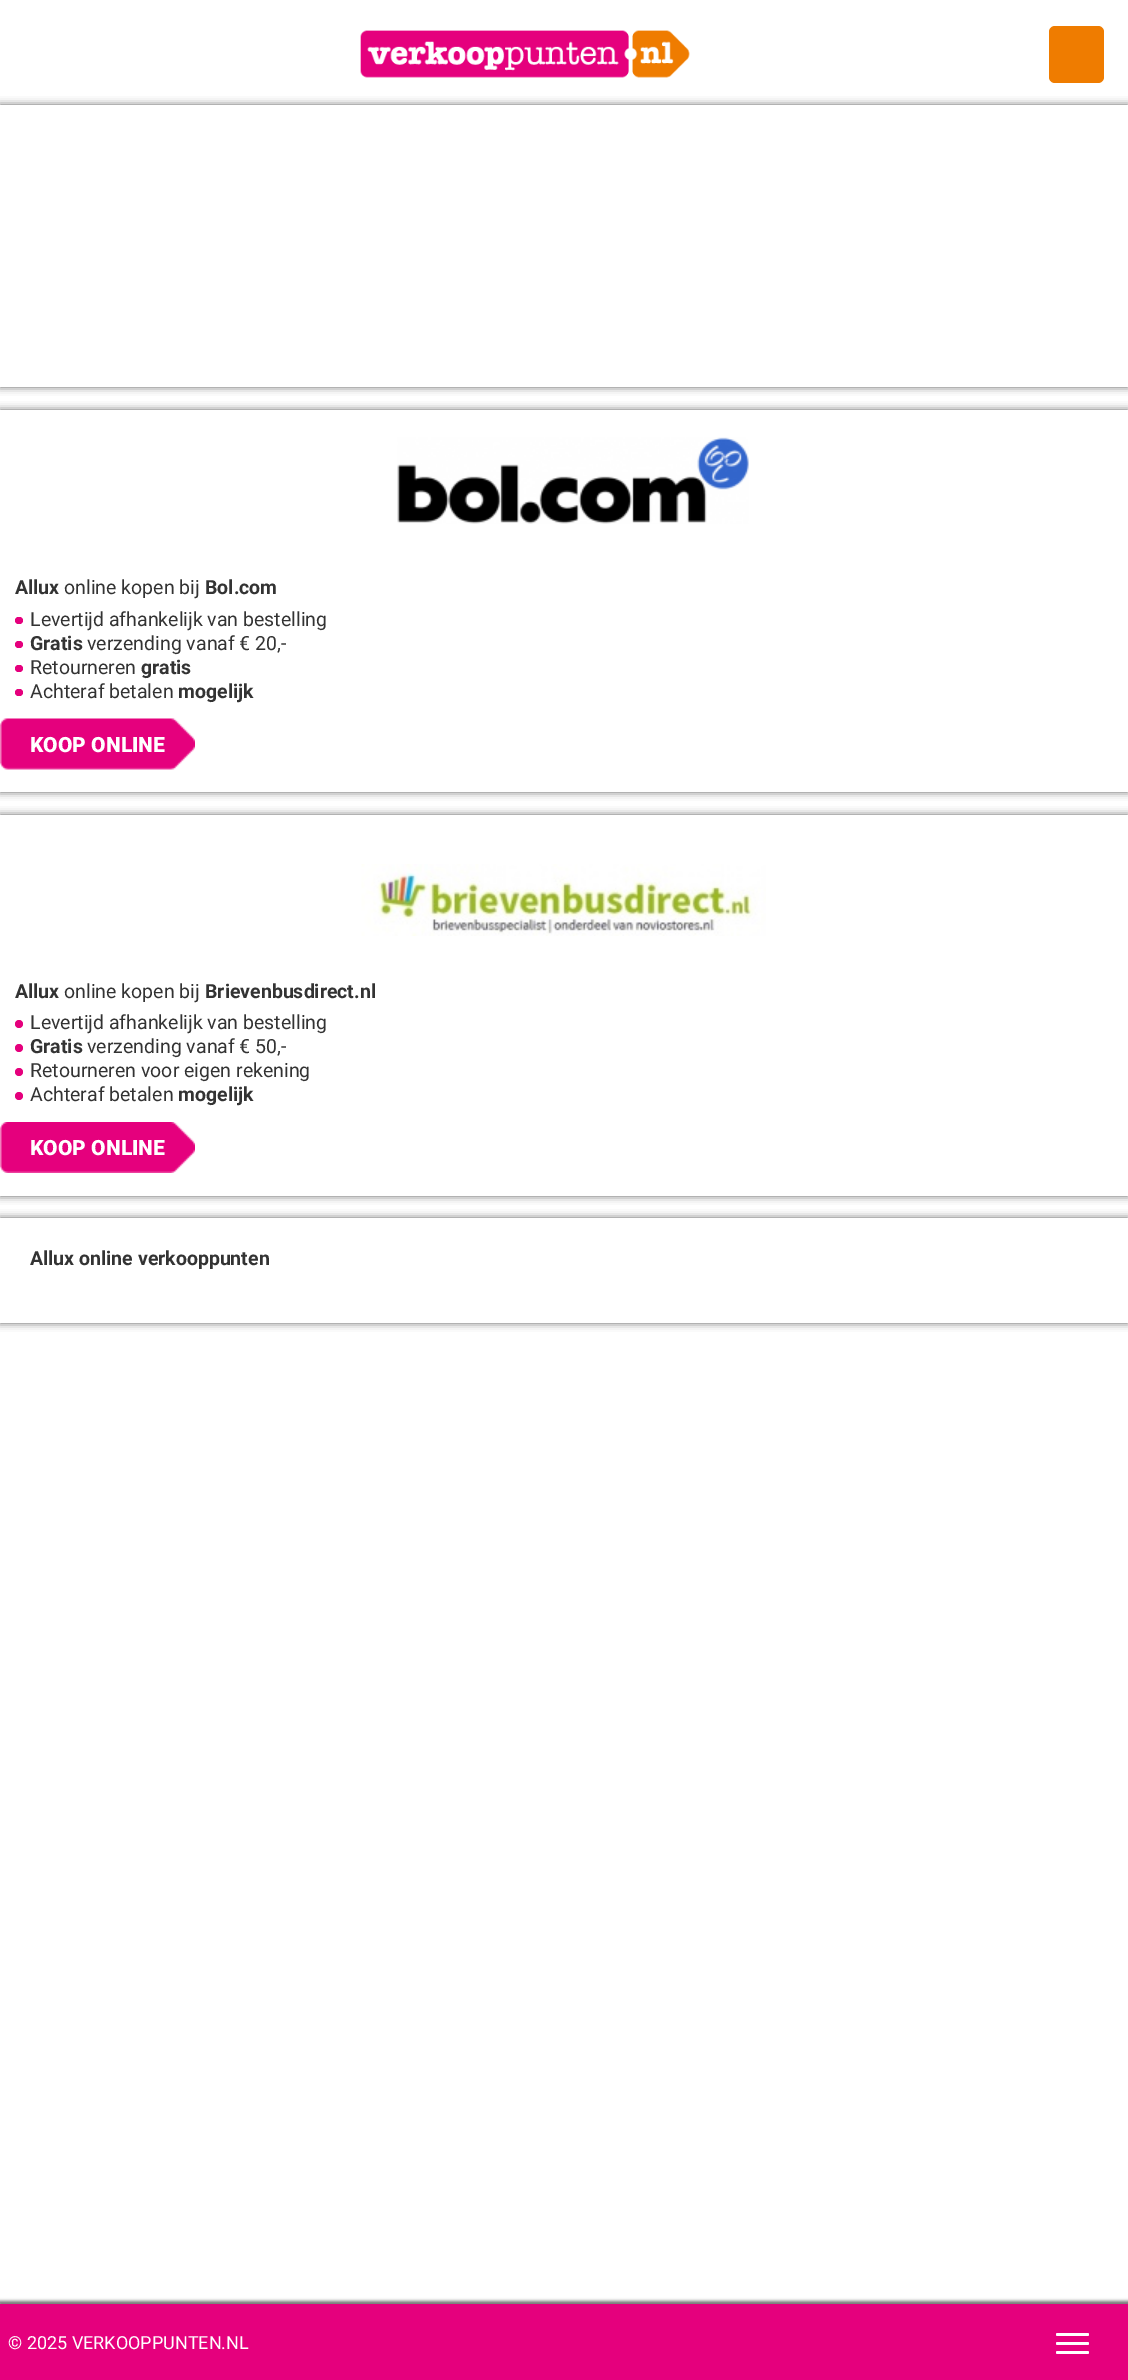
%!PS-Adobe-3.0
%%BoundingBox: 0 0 1128 2380
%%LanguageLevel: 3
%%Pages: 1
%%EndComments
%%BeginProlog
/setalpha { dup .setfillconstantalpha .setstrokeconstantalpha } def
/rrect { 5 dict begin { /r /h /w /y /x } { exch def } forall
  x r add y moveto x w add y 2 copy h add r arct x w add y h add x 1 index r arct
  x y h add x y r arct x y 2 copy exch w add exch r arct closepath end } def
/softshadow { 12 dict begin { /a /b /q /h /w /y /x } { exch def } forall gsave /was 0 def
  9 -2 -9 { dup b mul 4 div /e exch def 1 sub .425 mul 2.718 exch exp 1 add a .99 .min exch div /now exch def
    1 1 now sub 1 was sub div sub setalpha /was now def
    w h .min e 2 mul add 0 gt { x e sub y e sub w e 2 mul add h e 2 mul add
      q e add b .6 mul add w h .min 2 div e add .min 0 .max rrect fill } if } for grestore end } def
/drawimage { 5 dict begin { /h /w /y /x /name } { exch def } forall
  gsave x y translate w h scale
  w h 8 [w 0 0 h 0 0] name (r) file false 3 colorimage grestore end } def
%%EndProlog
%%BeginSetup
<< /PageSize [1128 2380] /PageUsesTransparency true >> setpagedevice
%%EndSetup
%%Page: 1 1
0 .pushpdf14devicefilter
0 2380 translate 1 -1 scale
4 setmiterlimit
1 setgray
0 0 1128 2380 rectfill
(images/1.raw) 360 30 330 48 drawimage
0.937 0.486 0 setrgbcolor
1049 26 55 57 6 rrect fill
gsave
newpath 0 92 moveto 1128 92 lineto 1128 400 lineto 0 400 lineto closepath 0 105 moveto 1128 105 lineto 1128 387 lineto 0 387 lineto closepath eoclip newpath
0.196 setgray
0 105 1128 282 0 4 0.75 softshadow
grestore
gsave
newpath 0 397 moveto 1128 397 lineto 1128 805 lineto 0 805 lineto closepath 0 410 moveto 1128 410 lineto 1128 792 lineto 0 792 lineto closepath eoclip newpath
0.196 setgray
0 410 1128 382 0 4 0.75 softshadow
grestore
(images/2.raw) 397 437 352 87 drawimage
0.898 0 0.49 setrgbcolor
15 617 8 7 3.5 rrect fill
15 641 8 7 3.5 rrect fill
15 665 8 7 3.5 rrect fill
15 689 8 7 3.5 rrect fill
(images/3.raw) 0 718 195 52 drawimage
gsave
newpath 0 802 moveto 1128 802 lineto 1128 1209 lineto 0 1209 lineto closepath 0 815 moveto 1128 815 lineto 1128 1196 lineto 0 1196 lineto closepath eoclip newpath
0.196 setgray
0 815 1128 381 0 4 0.75 softshadow
grestore
(images/4.raw) 361 864 405 72 drawimage
newpath 19 1024 4 0 360 arc closepath fill
newpath 19 1048 4 0 360 arc closepath fill
newpath 19 1072 4 0 360 arc closepath fill
newpath 19 1096 4 0 360 arc closepath fill
(images/5.raw) 0 1122 195 51 drawimage
gsave
newpath 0 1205 moveto 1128 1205 lineto 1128 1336 lineto 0 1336 lineto closepath 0 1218 moveto 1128 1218 lineto 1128 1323 lineto 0 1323 lineto closepath eoclip newpath
0.196 setgray
0 1218 1128 105 0 4 0.75 softshadow
grestore
0.467 setgray
-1 2301 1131 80 0 1.5 1 softshadow
0.898 0 0.49 setrgbcolor
0 2304 1128 76 rectfill
1 setgray
1056 2333 33 3 1.5 rrect fill
1056 2342 33 3 1.5 rrect fill
1056 2351 33 3 1.5 rrect fill
/Roboto-Bold [19.5 0 0 -19.5 0 0] selectfont
0.2 setgray
15 594 moveto (Allux) show
/Roboto-Regular [19.5 0 0 -19.5 0 0] selectfont
64 594 moveto (online kopen bij) show
/Roboto-Bold [19.5 0 0 -19.5 0 0] selectfont
205 594 moveto (Bol.com) show
/Roboto-Regular [19.5 0 0 -19.5 0 0] selectfont
30 626 moveto (Levertijd afhankelijk van bestelling) show
/Roboto-Bold [19.5 0 0 -19.5 0 0] selectfont
30 650 moveto (Gratis) show
/Roboto-Regular [19.5 0 0 -19.5 0 0] selectfont
87 650 moveto (verzending vanaf € 20,-) show
30 674 moveto (Retourneren) show
/Roboto-Bold [19.5 0 0 -19.5 0 0] selectfont
141 674 moveto (gratis) show
/Roboto-Regular [19.5 0 0 -19.5 0 0] selectfont
30 698 moveto (Achteraf betalen) show
/Roboto-Bold [19.5 0 0 -19.5 0 0] selectfont
178 698 moveto (mogelijk) show
/Roboto-Black [21 0 0 -21 0 0] selectfont
1 setgray
30 752 moveto (KOOP ONLINE) show
/Roboto-Bold [19.5 0 0 -19.5 0 0] selectfont
0.2 setgray
15 998 moveto (Allux) show
/Roboto-Regular [19.5 0 0 -19.5 0 0] selectfont
64 998 moveto (online kopen bij) show
/Roboto-Bold [19.5 0 0 -19.5 0 0] selectfont
205 998 moveto (Brievenbusdirect.nl) show
/Roboto-Regular [19.5 0 0 -19.5 0 0] selectfont
30 1029 moveto (Levertijd afhankelijk van bestelling) show
/Roboto-Bold [19.5 0 0 -19.5 0 0] selectfont
30 1053 moveto (Gratis) show
/Roboto-Regular [19.5 0 0 -19.5 0 0] selectfont
87 1053 moveto (verzending vanaf € 50,-) show
30 1077 moveto (Retourneren voor eigen rekening) show
30 1101 moveto (Achteraf betalen) show
/Roboto-Bold [19.5 0 0 -19.5 0 0] selectfont
178 1101 moveto (mogelijk) show
/Roboto-Black [21 0 0 -21 0 0] selectfont
1 setgray
30 1155 moveto (KOOP ONLINE) show
/Roboto-Bold [19.5 0 0 -19.5 0 0] selectfont
0.2 setgray
30 1265 moveto (Allux online verkooppunten) show
/Roboto-Regular [18 0 0 -18 0 0] selectfont
1 setgray
8 2349 moveto (© 2025 VERKOOPPUNTEN.NL) show
.poppdf14devicefilter showpage
%%EOF
